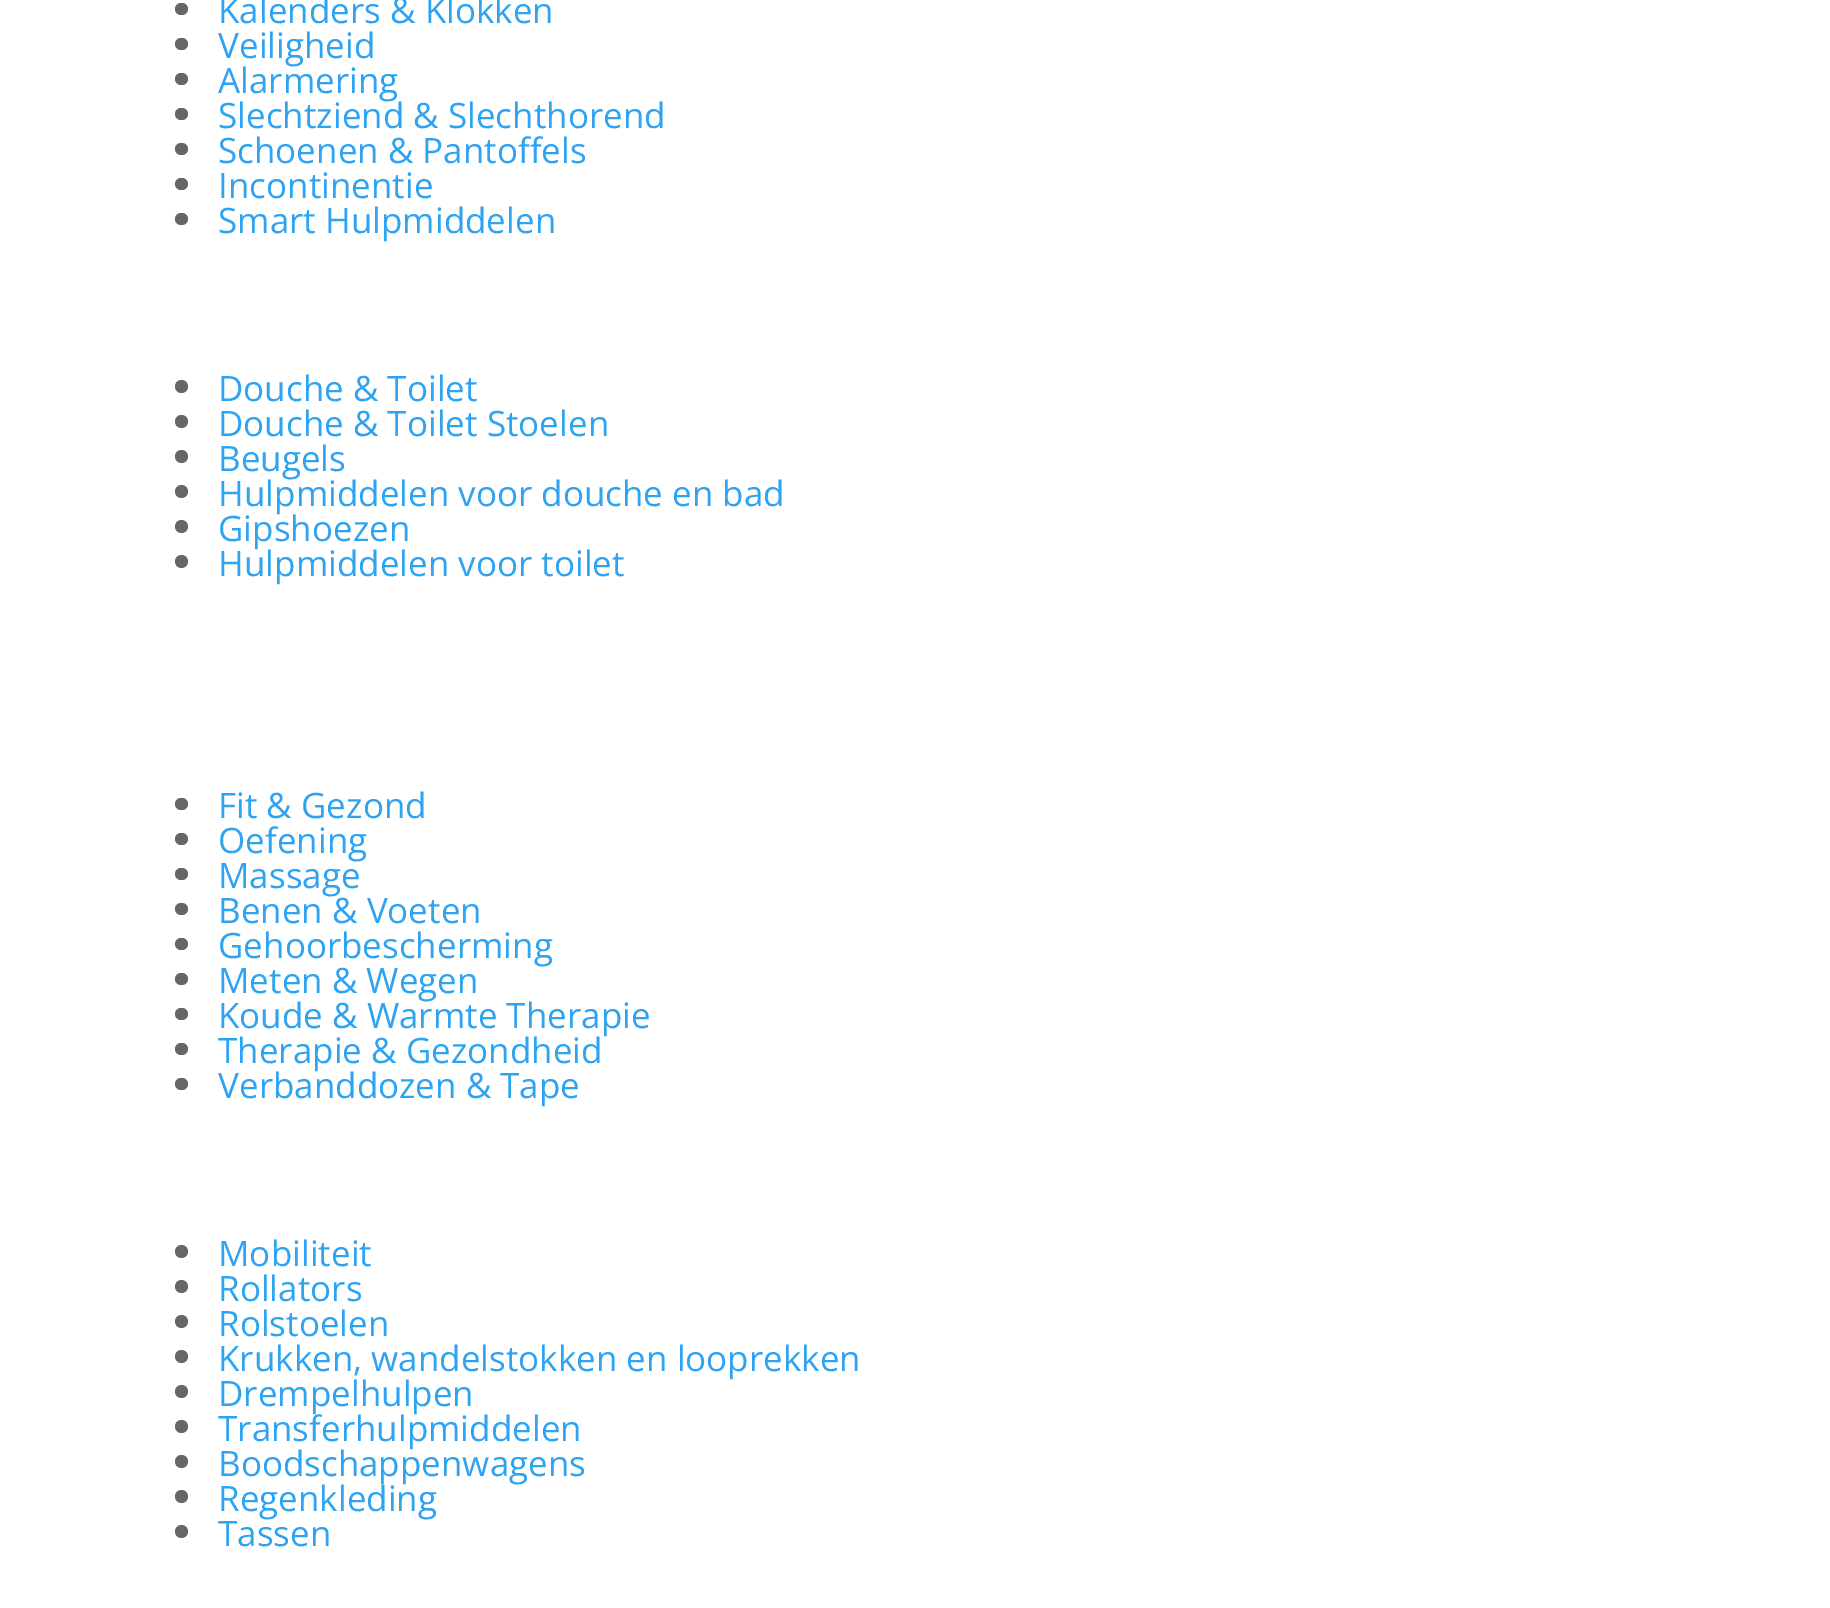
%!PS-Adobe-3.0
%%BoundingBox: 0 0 1830 1608
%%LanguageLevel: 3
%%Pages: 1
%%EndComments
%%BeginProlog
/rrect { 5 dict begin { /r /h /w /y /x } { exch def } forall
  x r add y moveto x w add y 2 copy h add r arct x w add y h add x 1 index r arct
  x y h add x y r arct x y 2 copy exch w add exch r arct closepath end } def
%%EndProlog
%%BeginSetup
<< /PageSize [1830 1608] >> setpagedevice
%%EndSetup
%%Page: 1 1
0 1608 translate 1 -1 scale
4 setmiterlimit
1 setgray
0 0 1830 1608 rectfill
0.4 setgray
175 3 13 12 6 rrect fill
175 38 13 12 6 rrect fill
175 73 13 12 6 rrect fill
175 108 13 12 6 rrect fill
175 143 13 12 6 rrect fill
175 178 13 12 6 rrect fill
175 213 13 12 6 rrect fill
newpath 181.5 386.5 6.5 0 360 arc closepath fill
newpath 181.5 421.5 6.5 0 360 arc closepath fill
newpath 181.5 456.5 6.5 0 360 arc closepath fill
newpath 181.5 491.5 6.5 0 360 arc closepath fill
newpath 181.5 526.5 6.5 0 360 arc closepath fill
newpath 181.5 561.5 6.5 0 360 arc closepath fill
175 798 13 12 6 rrect fill
175 833 13 12 6 rrect fill
175 868 13 12 6 rrect fill
175 903 13 12 6 rrect fill
175 938 13 12 6 rrect fill
175 973 13 12 6 rrect fill
175 1008 13 12 6 rrect fill
175 1043 13 12 6 rrect fill
175 1078 13 12 6 rrect fill
newpath 181.5 1251.5 6.5 0 360 arc closepath fill
newpath 181.5 1286.5 6.5 0 360 arc closepath fill
newpath 181.5 1321.5 6.5 0 360 arc closepath fill
newpath 181.5 1356.5 6.5 0 360 arc closepath fill
newpath 181.5 1391.5 6.5 0 360 arc closepath fill
newpath 181.5 1426.5 6.5 0 360 arc closepath fill
newpath 181.5 1461.5 6.5 0 360 arc closepath fill
newpath 181.5 1496.5 6.5 0 360 arc closepath fill
newpath 181.5 1531.5 6.5 0 360 arc closepath fill
/OpenSans-Regular [35 0 0 -35 0 0] selectfont
0.18 0.639 0.949 setrgbcolor
218 23 moveto (Kalenders & Klokken) show
218 58 moveto (Veiligheid) show
218 93 moveto (Alarmering) show
218 128 moveto (Slechtziend & Slechthorend) show
218 163 moveto (Schoenen & Pantoffels) show
218 198 moveto (Incontinentie) show
218 233 moveto (Smart Hulpmiddelen) show
218 401 moveto (Douche & Toilet) show
218 436 moveto (Douche & Toilet Stoelen) show
218 471 moveto (Beugels) show
218 506 moveto (Hulpmiddelen voor douche en bad) show
218 541 moveto (Gipshoezen) show
218 576 moveto (Hulpmiddelen voor toilet) show
218 818 moveto (Fit & Gezond) show
218 853 moveto (Oefening) show
218 888 moveto (Massage) show
218 923 moveto (Benen & Voeten) show
218 958 moveto (Gehoorbescherming) show
218 993 moveto (Meten & Wegen) show
218 1028 moveto (Koude & Warmte Therapie) show
218 1063 moveto (Therapie & Gezondheid) show
218 1098 moveto (Verbanddozen & Tape) show
218 1266 moveto (Mobiliteit) show
218 1301 moveto (Rollators) show
218 1336 moveto (Rolstoelen) show
218 1371 moveto (Krukken, wandelstokken en looprekken) show
218 1406 moveto (Drempelhulpen) show
218 1441 moveto (Transferhulpmiddelen) show
218 1476 moveto (Boodschappenwagens) show
218 1511 moveto (Regenkleding) show
218 1546 moveto (Tassen) show
showpage
%%EOF
